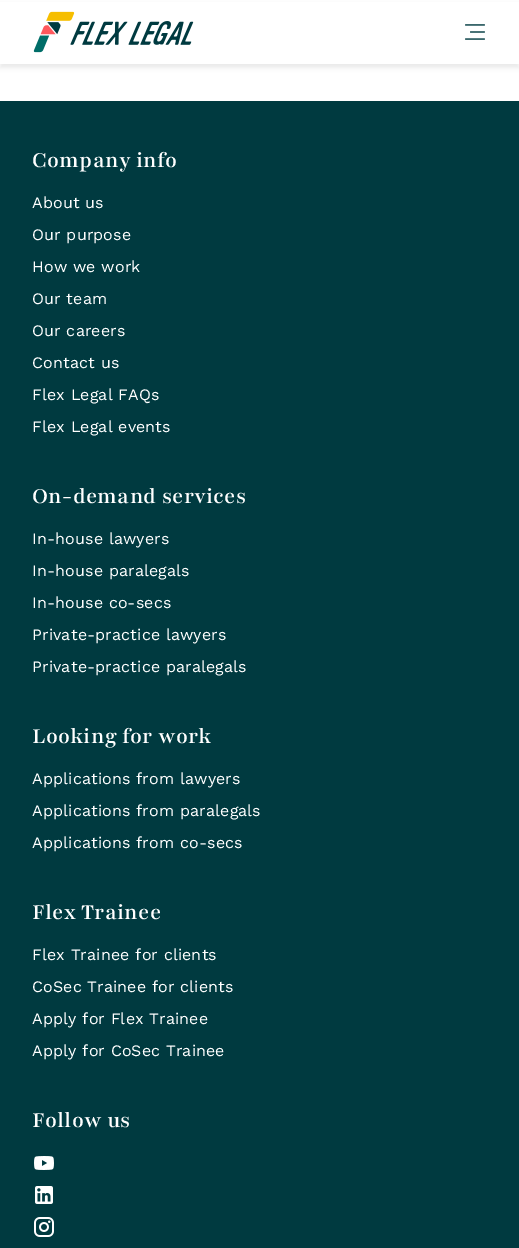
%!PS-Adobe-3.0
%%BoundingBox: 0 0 519 1248
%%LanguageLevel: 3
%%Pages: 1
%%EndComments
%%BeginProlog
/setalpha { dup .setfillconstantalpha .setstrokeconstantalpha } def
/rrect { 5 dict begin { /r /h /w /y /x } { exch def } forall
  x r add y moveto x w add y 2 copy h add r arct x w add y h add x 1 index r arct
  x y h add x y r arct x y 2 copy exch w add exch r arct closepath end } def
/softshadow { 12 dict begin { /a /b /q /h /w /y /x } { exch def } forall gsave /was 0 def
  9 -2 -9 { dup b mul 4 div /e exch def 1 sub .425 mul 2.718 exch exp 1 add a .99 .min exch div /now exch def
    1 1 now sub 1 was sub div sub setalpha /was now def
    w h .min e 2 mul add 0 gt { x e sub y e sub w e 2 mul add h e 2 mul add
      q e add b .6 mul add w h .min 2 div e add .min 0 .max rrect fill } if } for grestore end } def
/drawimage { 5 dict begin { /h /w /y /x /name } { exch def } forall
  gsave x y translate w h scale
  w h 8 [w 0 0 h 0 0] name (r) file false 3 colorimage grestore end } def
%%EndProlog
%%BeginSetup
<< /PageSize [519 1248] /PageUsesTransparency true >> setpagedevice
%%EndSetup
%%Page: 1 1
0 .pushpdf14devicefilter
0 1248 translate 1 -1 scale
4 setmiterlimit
1 setgray
0 0 519 1248 rectfill
0 setgray
0 4 519 64 0 2 0.07 softshadow
1 setgray
0 2 519 62 rectfill
(images/1.raw) 33 11 161 42 drawimage
(images/2.raw) 465 24 20 16 drawimage
0 0.227 0.251 setrgbcolor
0 101 519 1147 rectfill
(images/3.raw) 34 1156 20 14 drawimage
(images/4.raw) 35 1186 18 18 drawimage
(images/5.raw) 34 1217 20 20 drawimage
/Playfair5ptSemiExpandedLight-SemiBold [24 0 0 -24 0 0] selectfont
1 setgray
32 167 moveto 0.25 0 (Company info) ashow
/WorkSans-Regular [16 0 0 -16 0 0] selectfont
32 208 moveto 0.15 0 (About us) ashow
32 240 moveto 0.15 0 (Our purpose) ashow
32 272 moveto 0.15 0 (How we work) ashow
32 304 moveto 0.15 0 (Our team) ashow
32 336 moveto 0.15 0 (Our careers) ashow
32 368 moveto 0.15 0 (Contact us) ashow
32 400 moveto 0.15 0 (Flex Legal FAQs) ashow
32 432 moveto 0.15 0 (Flex Legal events) ashow
/Playfair5ptSemiExpandedLight-SemiBold [24 0 0 -24 0 0] selectfont
32 503 moveto 0.25 0 (On-demand services) ashow
/WorkSans-Regular [16 0 0 -16 0 0] selectfont
32 544 moveto 0.15 0 (In-house lawyers) ashow
32 576 moveto 0.15 0 (In-house paralegals) ashow
32 608 moveto 0.15 0 (In-house co-secs) ashow
32 640 moveto 0.15 0 (Private-practice lawyers) ashow
32 672 moveto 0.15 0 (Private-practice paralegals) ashow
/Playfair5ptSemiExpandedLight-SemiBold [24 0 0 -24 0 0] selectfont
32 743 moveto 0.25 0 (Looking for work) ashow
/WorkSans-Regular [16 0 0 -16 0 0] selectfont
32 784 moveto 0.15 0 (Applications from lawyers) ashow
32 816 moveto 0.15 0 (Applications from paralegals) ashow
32 848 moveto 0.15 0 (Applications from co-secs) ashow
/Playfair5ptSemiExpandedLight-SemiBold [24 0 0 -24 0 0] selectfont
32 919 moveto 0.25 0 (Flex Trainee) ashow
/WorkSans-Regular [16 0 0 -16 0 0] selectfont
32 960 moveto 0.15 0 (Flex Trainee for clients) ashow
32 992 moveto 0.15 0 (CoSec Trainee for clients) ashow
32 1024 moveto 0.15 0 (Apply for Flex Trainee) ashow
32 1056 moveto 0.15 0 (Apply for CoSec Trainee) ashow
/Playfair5ptSemiExpandedLight-SemiBold [24 0 0 -24 0 0] selectfont
32 1127 moveto 0.25 0 (Follow us) ashow
.poppdf14devicefilter showpage
%%EOF
